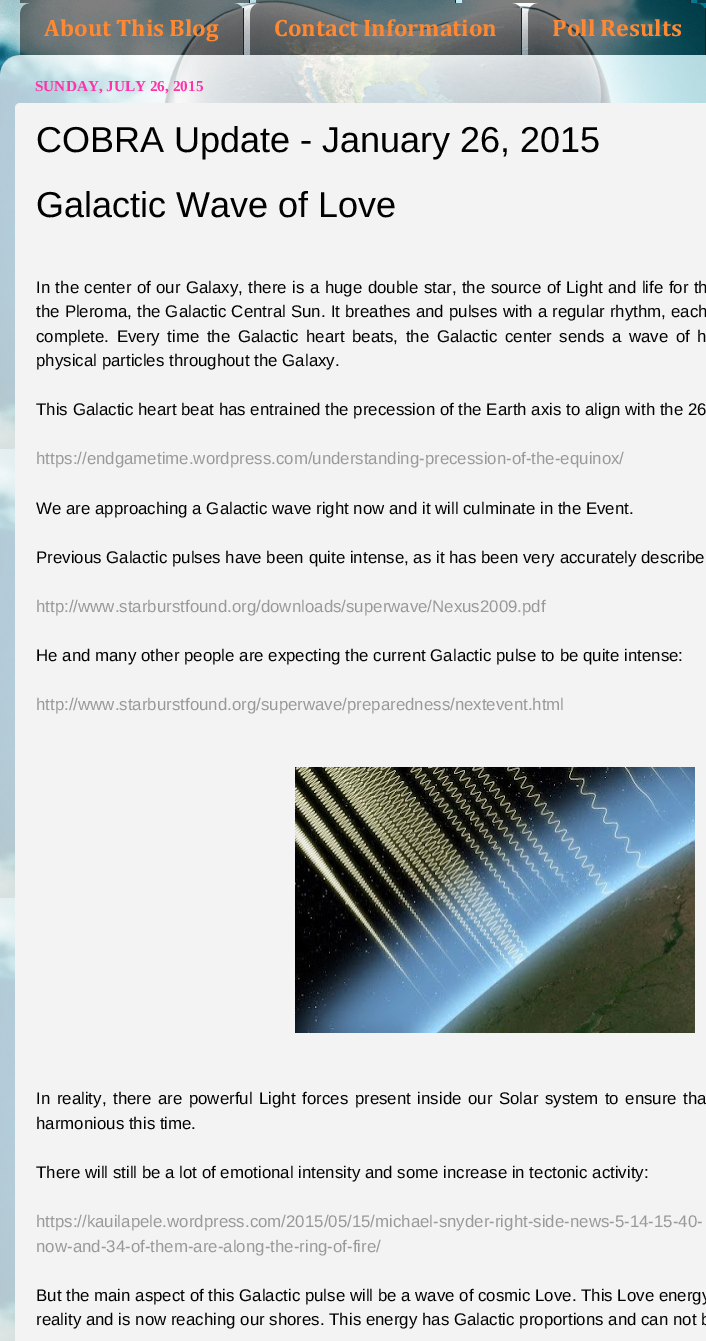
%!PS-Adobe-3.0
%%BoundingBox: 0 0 706 1341
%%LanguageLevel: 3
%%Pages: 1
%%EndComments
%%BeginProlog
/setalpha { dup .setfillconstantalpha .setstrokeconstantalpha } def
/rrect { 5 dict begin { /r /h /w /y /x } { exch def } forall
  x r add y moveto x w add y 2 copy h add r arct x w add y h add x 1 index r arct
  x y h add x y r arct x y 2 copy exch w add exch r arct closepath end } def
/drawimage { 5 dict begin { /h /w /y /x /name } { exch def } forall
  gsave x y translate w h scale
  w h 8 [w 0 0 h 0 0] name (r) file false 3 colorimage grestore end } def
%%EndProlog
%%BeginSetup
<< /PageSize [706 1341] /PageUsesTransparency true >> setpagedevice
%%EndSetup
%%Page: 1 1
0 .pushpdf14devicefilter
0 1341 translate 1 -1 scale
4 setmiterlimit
1 setgray
0 0 706 1341 rectfill
(images/1.raw) 0 0 706 1341 drawimage
0.5 setalpha
0 setgray
20 0 230 3 rectfill
1 setalpha
0.102 0.133 0.165 setrgbcolor
249 0 1 3 rectfill
0.5 setalpha
0 setgray
256 0 200 3 rectfill
1 setalpha
0.102 0.133 0.165 setrgbcolor
455 0 1 3 rectfill
0.5 setalpha
0 setgray
462 0 229 3 rectfill
1 setalpha
0.102 0.133 0.165 setrgbcolor
690 0 1 3 rectfill
0.5 setalpha
0 setgray
697 0 9 3 rectfill
1 setalpha
(images/2.raw) 20 3 223 52 drawimage
0.102 0.133 0.165 setrgbcolor
243 8 1 47 rectfill
(images/3.raw) 250 3 271 52 drawimage
521 8 1 47 rectfill
(images/4.raw) 528 3 177 52 drawimage
705 8 1 47 rectfill
(images/5.raw) 0 55 706 1286 drawimage
0.953 setgray
15 103 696 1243 5 rrect fill
(images/6.raw) 295 767 400 266 drawimage
/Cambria-Bold [24 0 0 -24 0 0] selectfont
1 0.533 0.196 setrgbcolor
44 36 moveto (About This Blog) show
274 36 moveto (Contact Information) show
552 36 moveto (Poll Results) show
/LiberationSerif-Bold [15.25 0 0 -15.25 0 0] selectfont
1 0.196 0.663 setrgbcolor
35 91 moveto (SUNDAY, JULY 26, 2015) show
/LiberationSans-Regular [36 0 0 -36 0 0] selectfont
0 setgray
36 152 moveto (COBRA Update - January 26, 2015) show
36 217 moveto (Galactic Wave of Love) show
/LiberationSans-Regular [16.85 0 0 -16.85 0 0] selectfont
36 293 moveto 0.75 0 32 (In the center of our Galaxy, there is a huge double star, the source of Light and life for th) widthshow
36 317 moveto 0.4 0 32 (the Pleroma, the Galactic Central Sun. It breathes and pulses with a regular rhythm, each) widthshow
36 342 moveto 2.9 0 32 (complete. Every time the Galactic heart beats, the Galactic center sends a wave of h) widthshow
36 366 moveto (physical particles throughout the Galaxy.) show
36 415 moveto (This Galactic heart beat has entrained the precession of the Earth axis to align with the 26) show
0.6 setgray
36 464 moveto (https://endgametime.wordpress.com/understanding-precession-of-the-equinox/) show
0 setgray
36 514 moveto (We are approaching a Galactic wave right now and it will culminate in the Event.) show
36 563 moveto (Previous Galactic pulses have been quite intense, as it has been very accurately describe) show
0.6 setgray
36 612 moveto (http://www.starburstfound.org/downloads/superwave/Nexus2009.pdf) show
0 setgray
36 661 moveto (He and many other people are expecting the current Galactic pulse to be quite intense:) show
0.6 setgray
36 710 moveto (http://www.starburstfound.org/superwave/preparedness/nextevent.html) show
0 setgray
36 1104 moveto 1.9 0 32 (In reality, there are powerful Light forces present inside our Solar system to ensure tha) widthshow
36 1129 moveto (harmonious this time.) show
36 1178 moveto (There will still be a lot of emotional intensity and some increase in tectonic activity:) show
0.6 setgray
36 1227 moveto (https://kauilapele.wordpress.com/2015/05/15/michael-snyder-right-side-news-5-14-15-40-) show
36 1252 moveto (now-and-34-of-them-are-along-the-ring-of-fire/) show
0 setgray
36 1301 moveto (But the main aspect of this Galactic pulse will be a wave of cosmic Love. This Love energy) show
36 1325 moveto (reality and is now reaching our shores. This energy has Galactic proportions and can not b) show
.poppdf14devicefilter showpage
%%EOF
